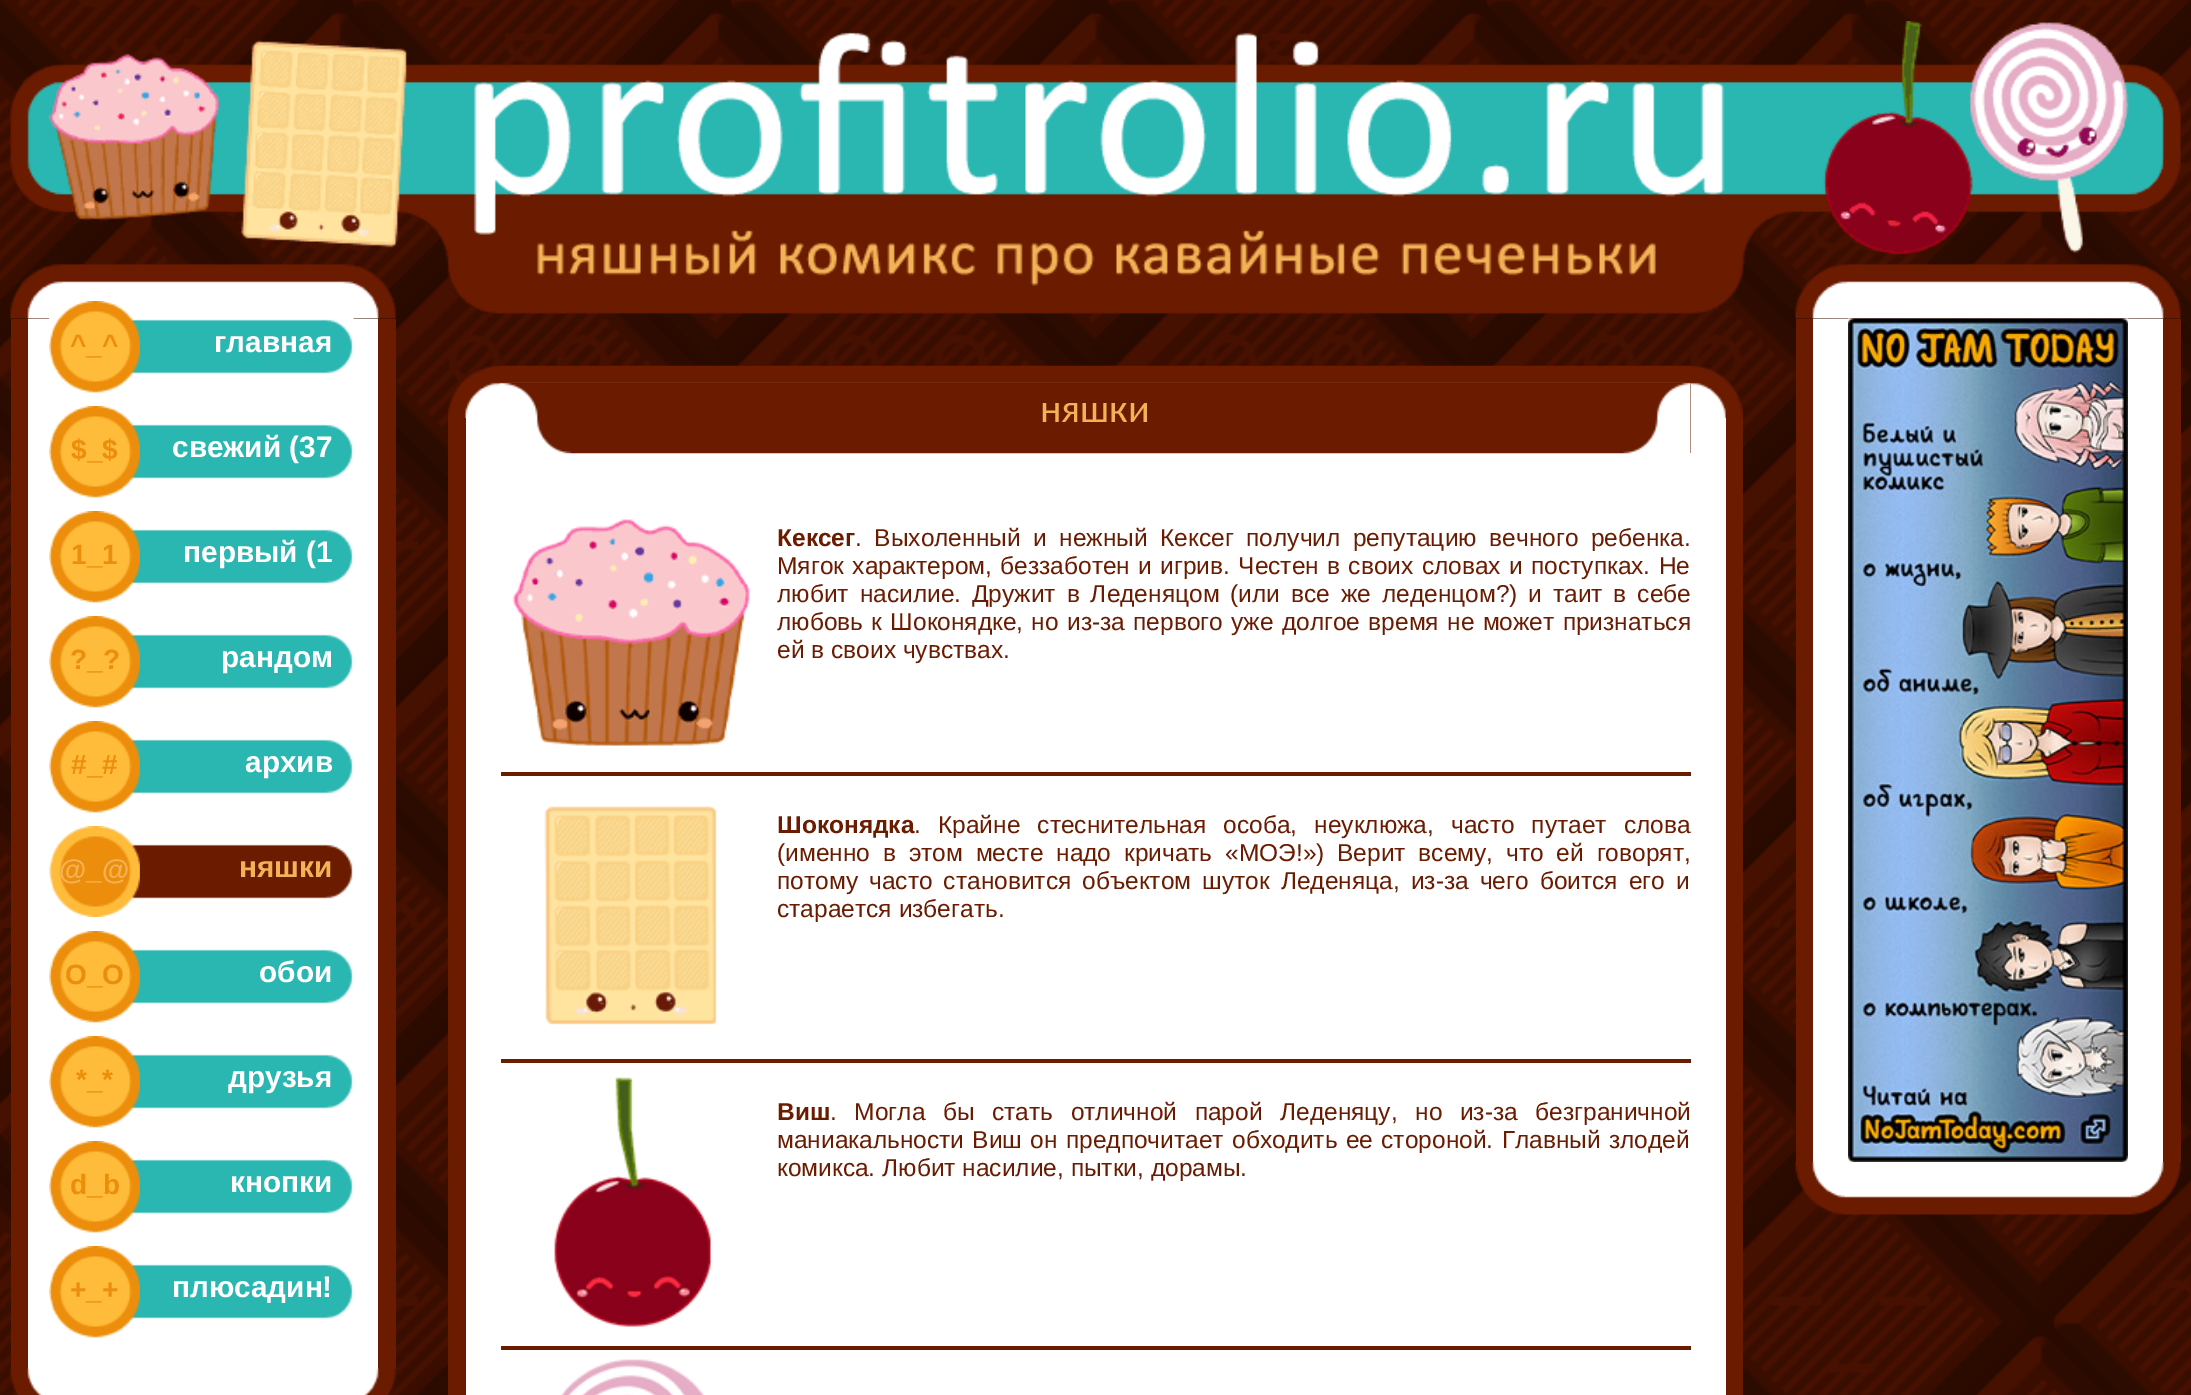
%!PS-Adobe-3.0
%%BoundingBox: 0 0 2191 1395
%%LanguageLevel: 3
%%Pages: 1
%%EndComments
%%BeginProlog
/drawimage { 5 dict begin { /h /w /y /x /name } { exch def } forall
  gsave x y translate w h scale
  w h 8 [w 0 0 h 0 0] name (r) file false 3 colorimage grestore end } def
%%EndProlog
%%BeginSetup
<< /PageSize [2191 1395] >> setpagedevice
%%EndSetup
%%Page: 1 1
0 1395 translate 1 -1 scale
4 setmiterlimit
1 setgray
0 0 2191 1395 rectfill
(images/1.raw) 0 0 2191 1395 drawimage
(images/2.raw) 10 21 2171 298 drawimage
28 319 350 1050 rectfill
0.416 0.106 0 setrgbcolor
378 319 18 1050 rectfill
11 319 17 1050 rectfill
(images/3.raw) 49 301 305 92 drawimage
0.165 0.714 0.694 setrgbcolor
140 332 3 29 rectfill
(images/4.raw) 49 406 304 92 drawimage
140 437 3 29 rectfill
(images/4.raw) 49 511 304 92 drawimage
140 542 3 29 rectfill
(images/4.raw) 49 616 304 92 drawimage
140 647 3 29 rectfill
(images/4.raw) 49 721 304 92 drawimage
140 752 3 29 rectfill
(images/5.raw) 49 826 304 91 drawimage
0.416 0.106 0 setrgbcolor
140 857 3 29 rectfill
(images/4.raw) 49 931 304 92 drawimage
0.165 0.714 0.694 setrgbcolor
140 962 3 29 rectfill
(images/4.raw) 49 1036 304 92 drawimage
140 1067 3 29 rectfill
(images/4.raw) 49 1141 304 92 drawimage
140 1172 3 29 rectfill
(images/4.raw) 49 1246 304 92 drawimage
140 1277 3 29 rectfill
(images/6.raw) 10 1368 386 27 drawimage
(images/7.raw) 448 365 1295 53 drawimage
1 setgray
466 418 1260 977 rectfill
0.416 0.106 0 setrgbcolor
1726 418 17 977 rectfill
448 418 18 977 rectfill
501 383 1190 70 rectfill
(images/8.raw) 500 383 1191 71 drawimage
501 772 1190 4 rectfill
(images/9.raw) 512 519 238 227 drawimage
501 1059 1190 4 rectfill
(images/10.raw) 544 806 173 219 drawimage
501 1346 1190 4 rectfill
(images/11.raw) 554 1077 157 250 drawimage
(images/12.raw) 561 1359 143 36 drawimage
1 setgray
1813 319 350 843 rectfill
0.416 0.106 0 setrgbcolor
2163 319 18 843 rectfill
1796 319 17 843 rectfill
(images/13.raw) 1848 318 280 844 drawimage
(images/14.raw) 1795 1162 386 53 drawimage
/LiberationSans-Bold [28 0 0 -28 0 0] selectfont
0.925 0.557 0.047 setrgbcolor
70 354 moveto (^_^) show
/LiberationSans-Bold [29.75 0 0 -29.75 0 0] selectfont
1 setgray
214 352 moveto (главная) show
/LiberationSans-Bold [28 0 0 -28 0 0] selectfont
0.925 0.557 0.047 setrgbcolor
71 459 moveto ($_$) show
/LiberationSans-Bold [29.75 0 0 -29.75 0 0] selectfont
1 setgray
172 457 moveto (свежий \(37) show
/LiberationSans-Bold [28 0 0 -28 0 0] selectfont
0.925 0.557 0.047 setrgbcolor
71 564 moveto (1_1) show
/LiberationSans-Bold [29.75 0 0 -29.75 0 0] selectfont
1 setgray
183 562 moveto (первый \(1) show
/LiberationSans-Bold [28 0 0 -28 0 0] selectfont
0.925 0.557 0.047 setrgbcolor
70 669 moveto (?_?) show
/LiberationSans-Bold [29.75 0 0 -29.75 0 0] selectfont
1 setgray
221 667 moveto (рандом) show
/LiberationSans-Bold [28 0 0 -28 0 0] selectfont
0.925 0.557 0.047 setrgbcolor
71 774 moveto (#_#) show
/LiberationSans-Bold [29.75 0 0 -29.75 0 0] selectfont
1 setgray
245 772 moveto (архив) show
/LiberationSans-Bold [28 0 0 -28 0 0] selectfont
0.953 0.698 0.337 setrgbcolor
59 879 moveto (@_@) show
/LiberationSans-Bold [29.75 0 0 -29.75 0 0] selectfont
239 877 moveto (няшки) show
/LiberationSans-Bold [28 0 0 -28 0 0] selectfont
0.925 0.557 0.047 setrgbcolor
65 984 moveto (O_O) show
/LiberationSans-Bold [29.75 0 0 -29.75 0 0] selectfont
1 setgray
259 982 moveto (обои) show
/LiberationSans-Bold [28 0 0 -28 0 0] selectfont
0.925 0.557 0.047 setrgbcolor
76 1089 moveto (*_*) show
/LiberationSans-Bold [29.75 0 0 -29.75 0 0] selectfont
1 setgray
228 1087 moveto (друзья) show
/LiberationSans-Bold [28 0 0 -28 0 0] selectfont
0.925 0.557 0.047 setrgbcolor
70 1194 moveto (d_b) show
/LiberationSans-Bold [29.75 0 0 -29.75 0 0] selectfont
1 setgray
230 1192 moveto (кнопки) show
/LiberationSans-Bold [28 0 0 -28 0 0] selectfont
0.925 0.557 0.047 setrgbcolor
70 1299 moveto (+_+) show
/LiberationSans-Bold [29.75 0 0 -29.75 0 0] selectfont
1 setgray
172 1297 moveto (плюсадин!) show
/Carlito-Regular [40 0 0 -40 0 0] selectfont
0.953 0.698 0.337 setrgbcolor
1040 422 moveto (няшки) show
/LiberationSans-Bold [24.5 0 0 -24.5 0 0] selectfont
0.416 0.106 0 setrgbcolor
777 546 moveto (Кексег) show
/LiberationSans-Regular [24.5 0 0 -24.5 0 0] selectfont
855 546 moveto 5.75 0 32 (. Выхоленный и нежный Кексег получил репутацию вечного ребенка.) widthshow
777 574 moveto 1.5 0 32 (Мягок характером, беззаботен и игрив. Честен в своих словах и поступках. Не) widthshow
777 602 moveto 4.1 0 32 (любит насилие. Дружит в Леденяцом \(или все же леденцом?\) и таит в себе) widthshow
777 630 moveto 1.5 0 32 (любовь к Шоконядке, но из-за первого уже долгое время не может признаться) widthshow
777 658 moveto (ей в своих чувствах.) show
/LiberationSans-Bold [24.5 0 0 -24.5 0 0] selectfont
777 833 moveto (Шоконядка) show
/LiberationSans-Regular [24.5 0 0 -24.5 0 0] selectfont
914 833 moveto 10.25 0 32 (. Крайне стеснительная особа, неуклюжа, часто путает слова) widthshow
777 861 moveto 6 0 32 (\(именно в этом месте надо кричать «МОЭ!»\) Верит всему, что ей говорят,) widthshow
777 889 moveto 4.25 0 32 (потому часто становится объектом шуток Леденяца, из-за чего боится его и) widthshow
777 917 moveto (старается избегать.) show
/LiberationSans-Bold [24.5 0 0 -24.5 0 0] selectfont
777 1120 moveto (Виш) show
/LiberationSans-Regular [24.5 0 0 -24.5 0 0] selectfont
830 1120 moveto 10.75 0 32 (. Могла бы стать отличной парой Леденяцу, но из-за безграничной) widthshow
777 1148 moveto 1.5 0 32 (маниакальности Виш он предпочитает обходить ее стороной. Главный злодей) widthshow
777 1176 moveto (комикса. Любит насилие, пытки, дорамы.) show
showpage
%%EOF
